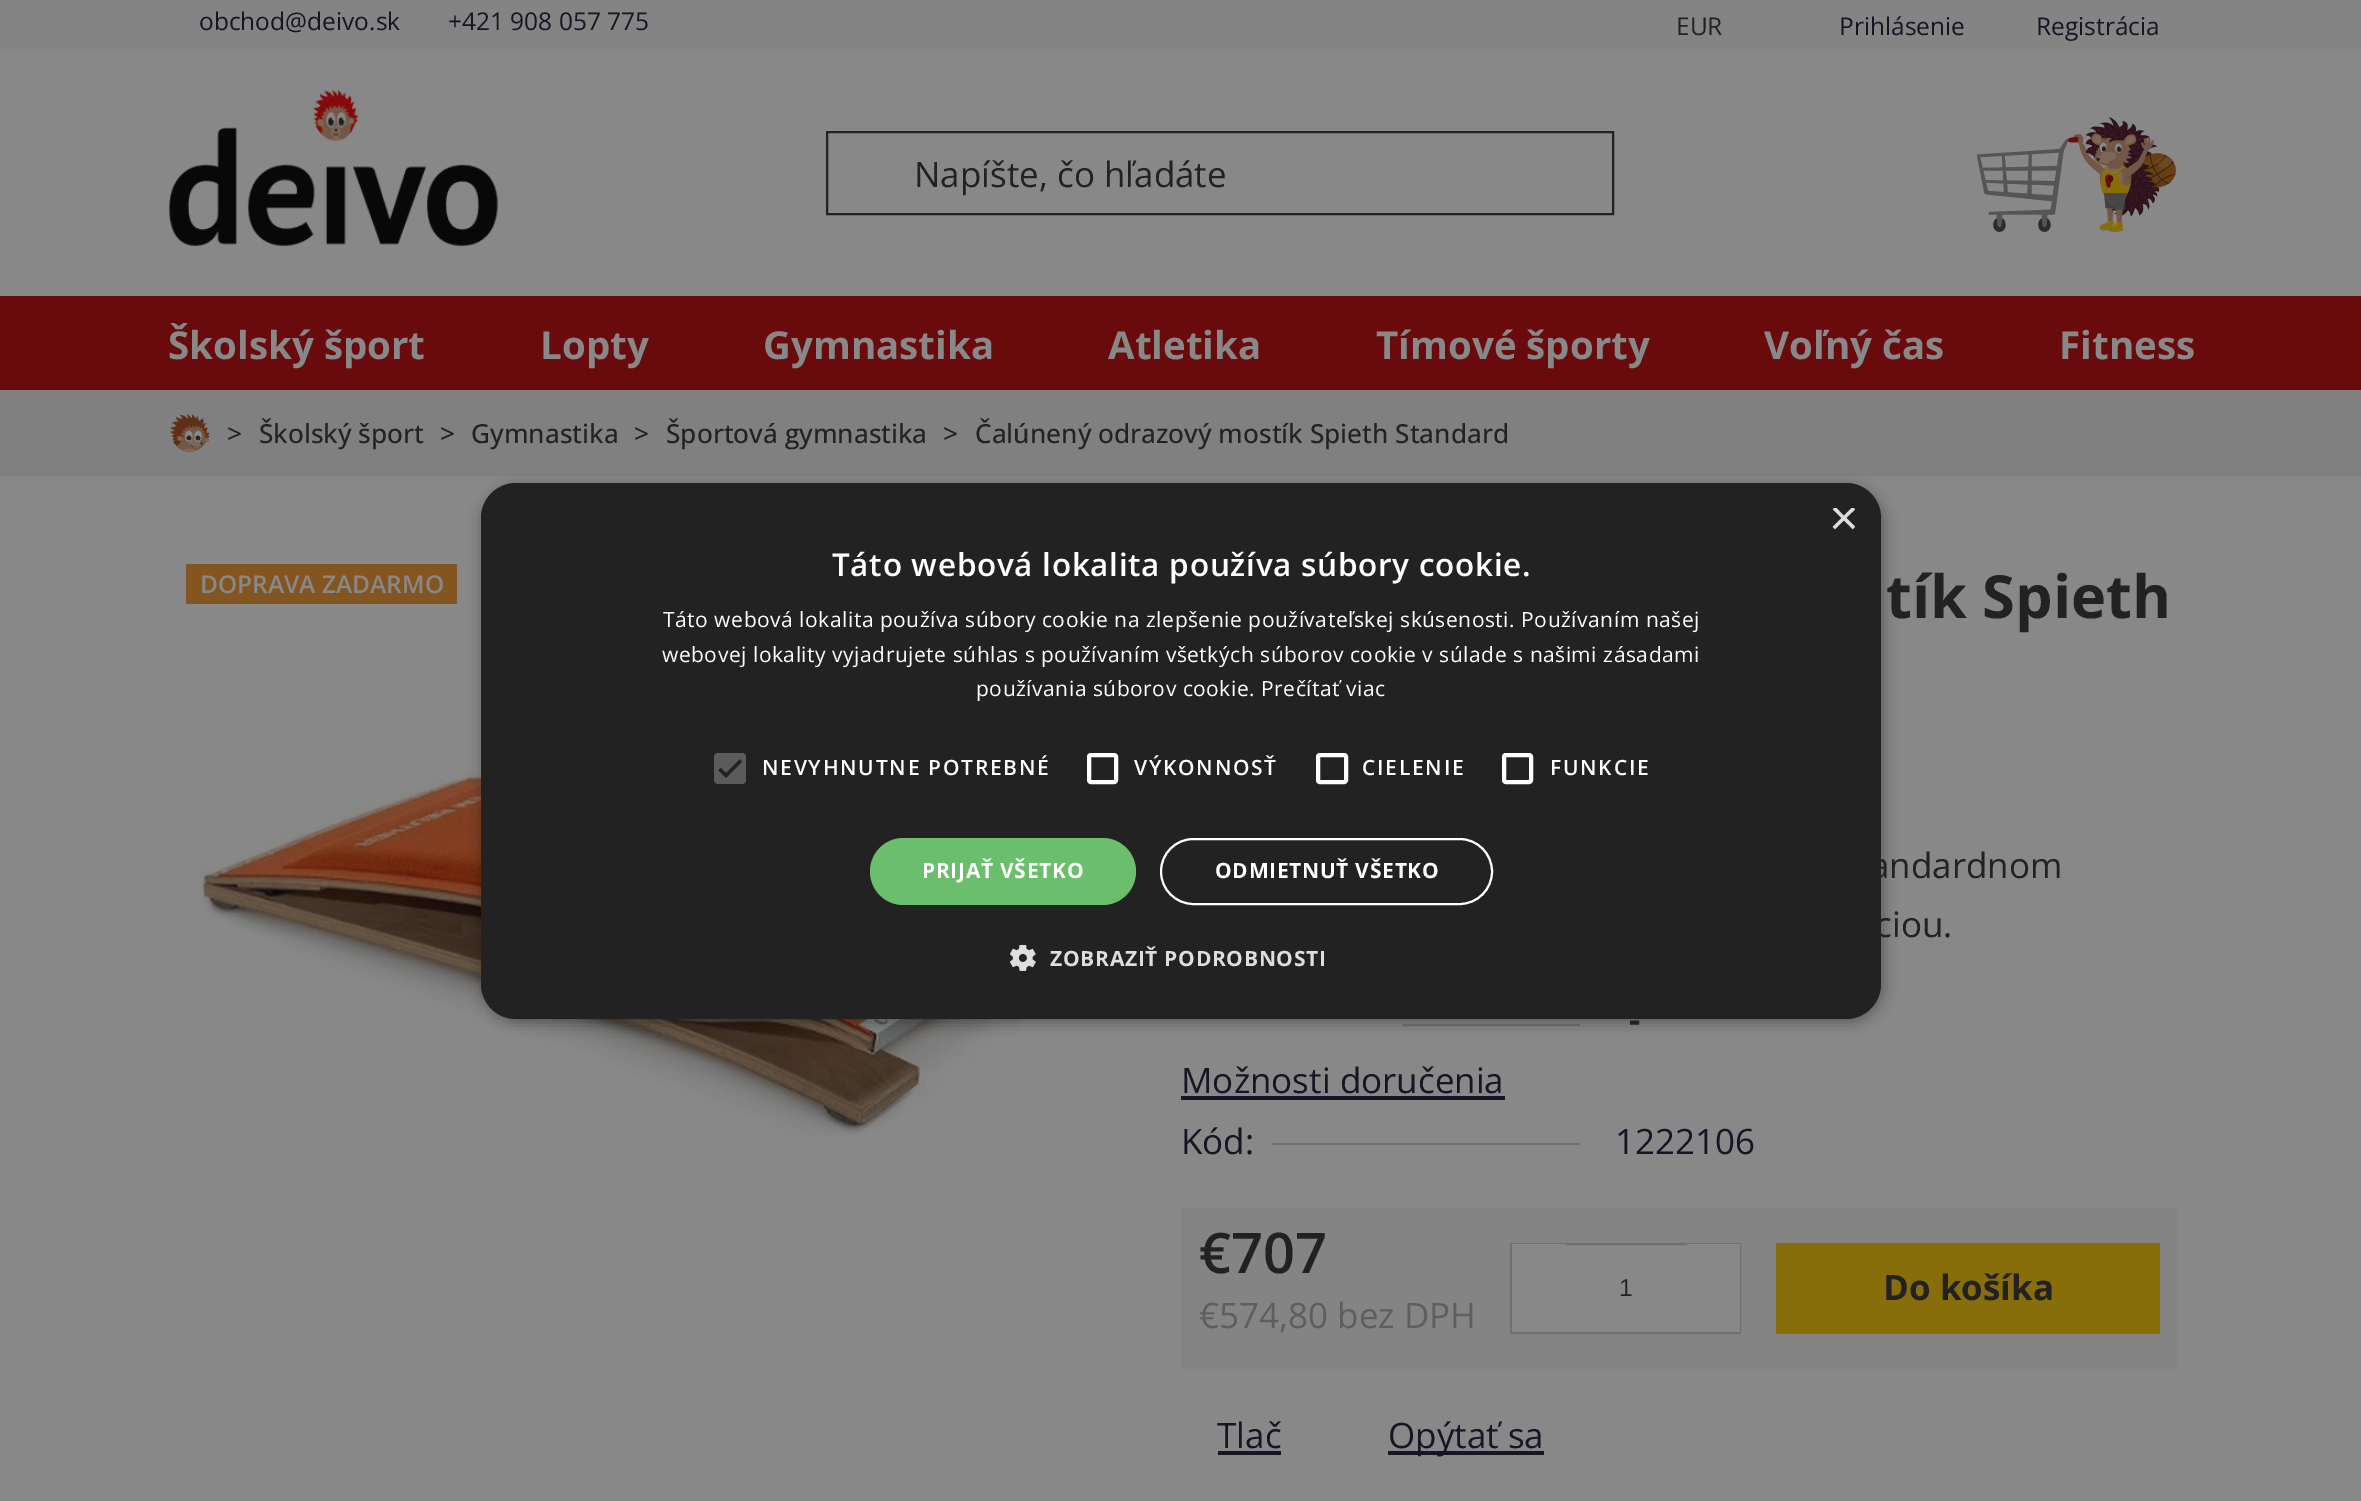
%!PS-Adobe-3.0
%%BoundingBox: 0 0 2361 1501
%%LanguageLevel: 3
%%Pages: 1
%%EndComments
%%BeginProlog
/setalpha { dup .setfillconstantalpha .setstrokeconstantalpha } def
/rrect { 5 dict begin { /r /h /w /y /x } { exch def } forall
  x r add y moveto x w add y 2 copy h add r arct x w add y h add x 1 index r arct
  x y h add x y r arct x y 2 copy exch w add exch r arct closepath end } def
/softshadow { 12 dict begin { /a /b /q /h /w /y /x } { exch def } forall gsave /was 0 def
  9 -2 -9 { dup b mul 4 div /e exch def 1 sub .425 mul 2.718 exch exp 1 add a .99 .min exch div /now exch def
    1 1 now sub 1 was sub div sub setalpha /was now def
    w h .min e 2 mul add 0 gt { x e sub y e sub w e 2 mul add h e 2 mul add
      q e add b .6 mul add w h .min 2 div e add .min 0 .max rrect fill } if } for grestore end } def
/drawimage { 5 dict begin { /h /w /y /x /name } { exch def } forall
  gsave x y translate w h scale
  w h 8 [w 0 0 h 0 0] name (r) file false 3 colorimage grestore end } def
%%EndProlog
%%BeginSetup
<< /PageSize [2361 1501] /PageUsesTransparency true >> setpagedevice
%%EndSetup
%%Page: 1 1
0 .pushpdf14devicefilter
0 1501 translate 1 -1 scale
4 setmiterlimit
0.533 setgray
0 0 2361 1501 rectfill
0.518 setgray
0 0 2361 51 rectfill
(images/1.raw) 169 90 329 157 drawimage
0.133 setgray
2 setlinewidth
827 132 786 82 rectstroke
(images/2.raw) 1976 117 200 115 drawimage
0.412 0.039 0.047 setrgbcolor
0 296 2361 94 rectfill
0.502 setgray
0 390 2361 86 rectfill
(images/3.raw) 170 414 40 38 drawimage
0.514 0.333 0.125 setrgbcolor
186 564 271 40 rectfill
(images/4.raw) 200 770 887 367 drawimage
0.439 setgray
1402 1024 178 2 rectfill
0.086 0.082 0.141 setrgbcolor
1181 1096 324 4 rectfill
0.439 setgray
1272 1143 308 2 rectfill
0.518 setgray
1181 1208 996 161 rectfill
0.533 setgray
1565 1245 122 87 rectfill
0.439 setgray
1511 1244 229 89 rectstroke
0.533 setgray
1512 1244 53 88 rectfill
1687 1244 53 88 rectfill
0.533 0.431 0.039 setrgbcolor
1776 1243 384 91 rectfill
0.086 0.082 0.141 setrgbcolor
1218 1451 63 4 rectfill
1388 1451 156 4 rectfill
0 setgray
483 487 1400 535 35 7 0.35 softshadow
0.133 setgray
481 483 1400 536 35 rrect fill
0.357 setgray
714 753 32 31 4 rrect fill
0.133 setgray
3.2 setlinewidth
newpath 719.5 769 moveto 726 775.5 lineto 741 760.5 lineto stroke
1 setgray
4 setlinewidth
1089 755 27 27 2 rrect stroke
1318 755 28 27 2 rrect stroke
1504 755 27 27 2 rrect stroke
0.42 0.745 0.42 setrgbcolor
870 838 266 67 33.5 rrect fill
1 setgray
2 setlinewidth
1161 839 331 65 32.5 rrect stroke
(images/5.raw) 1010 945 26 26 drawimage
/OpenSans-Regular [24.5 0 0 -24.5 0 0] selectfont
0.086 0.082 0.141 setrgbcolor
199 30 moveto (obchod@deivo.sk) show
448 30 moveto (+421 908 057 775) show
0.133 setgray
1676 35 moveto (EUR) show
0.086 0.082 0.141 setrgbcolor
1839 35 moveto (Prihlásenie) show
2036 35 moveto (Registrácia) show
/OpenSans-Regular [35 0 0 -35 0 0] selectfont
0.133 setgray
914 187 moveto (Napíšte, čo hľadáte) show
/OpenSans-Bold [38.5 0 0 -38.5 0 0] selectfont
0.533 setgray
168 359 moveto (Školský šport) show
540 359 moveto (Lopty) show
763 359 moveto (Gymnastika) show
1108 359 moveto (Atletika) show
1376 359 moveto (Tímové športy) show
1764 359 moveto (Voľný čas) show
2059 359 moveto (Fitness) show
/OpenSans-Medium [26.25 0 0 -26.25 0 0] selectfont
0.133 setgray
227 443 moveto (>) show
259 443 moveto (Školský šport) show
440 443 moveto (>) show
471 443 moveto (Gymnastika) show
634 443 moveto (>) show
666 443 moveto (Športová gymnastika) show
943 443 moveto (>) show
975 443 moveto (Čalúnený odrazový mostík Spieth Standard) show
/OpenSans-SemiBold [24.5 0 0 -24.5 0 0] selectfont
0.533 setgray
200 593 moveto (DOPRAVA ZADARMO) show
/OpenSans-Bold [59.5 0 0 -59.5 0 0] selectfont
0.133 setgray
1886 618 moveto (tík Spieth) show
/OpenSans-Regular [35 0 0 -35 0 0] selectfont
1870 878 moveto (andardnom) show
1875 937 moveto (ciou.) show
/OpenSans-Bold [35 0 0 -35 0 0] selectfont
1629 1032 moveto (-) show
/OpenSans-Regular [35 0 0 -35 0 0] selectfont
0.086 0.082 0.141 setrgbcolor
1181 1093 moveto (Možnosti doručenia) show
1181 1154 moveto (Kód:) show
1615 1154 moveto (1222106) show
/OpenSans-SemiBold [56 0 0 -56 0 0] selectfont
0.133 setgray
1199 1273 moveto (€707) show
/OpenSans-Regular [35 0 0 -35 0 0] selectfont
0.369 setgray
1199 1328 moveto (€574,80 bez DPH) show
/LiberationSans-Regular [24.5 0 0 -24.5 0 0] selectfont
0.133 setgray
1619 1296 moveto (1) show
/OpenSans-Bold [35 0 0 -35 0 0] selectfont
1883 1300 moveto (Do košíka) show
/OpenSans-Regular [35 0 0 -35 0 0] selectfont
0.086 0.082 0.141 setrgbcolor
1217 1448 moveto (Tlač) show
1388 1448 moveto (Opýtať sa) show
gsave
1829 508 26 26 rectclip
/LiberationSans-Regular [51 0 0 -51 0 0] selectfont
0.871 setgray
1829 535 moveto (×) show
grestore
/OpenSans-SemiBold [31.5 0 0 -31.5 0 0] selectfont
1 setgray
832 576 moveto 0.7 0 (Táto webová lokalita používa súbory cookie.) ashow
/OpenSans-Regular [21 0 0 -21 0 0] selectfont
663 627 moveto 0.53 0 (Táto webová lokalita používa súbory cookie na zlepšenie používateľskej skúsenosti. Používaním našej) ashow
662 662 moveto 0.53 0 (webovej lokality vyjadrujete súhlas s používaním všetkých súborov cookie v súlade s našimi zásadami) ashow
976 696 moveto 0.53 0 (používania súborov cookie. Prečítať viac) ashow
/OpenSans-SemiBold [21 0 0 -21 0 0] selectfont
762 775 moveto 1.75 0 (NEVYHNUTNE POTREBNÉ) ashow
1134 775 moveto 1.75 0 (VÝKONNOSŤ) ashow
1362 775 moveto 1.75 0 (CIELENIE) ashow
1550 775 moveto 1.75 0 (FUNKCIE) ashow
/OpenSans-Bold [21 0 0 -21 0 0] selectfont
922 878 moveto 0.7 0 (PRIJAŤ VŠETKO) ashow
1215 878 moveto 0.7 0 (ODMIETNUŤ VŠETKO) ashow
0.871 setgray
1050 966 moveto 0.7 0 (ZOBRAZIŤ PODROBNOSTI) ashow
.poppdf14devicefilter showpage
%%EOF
